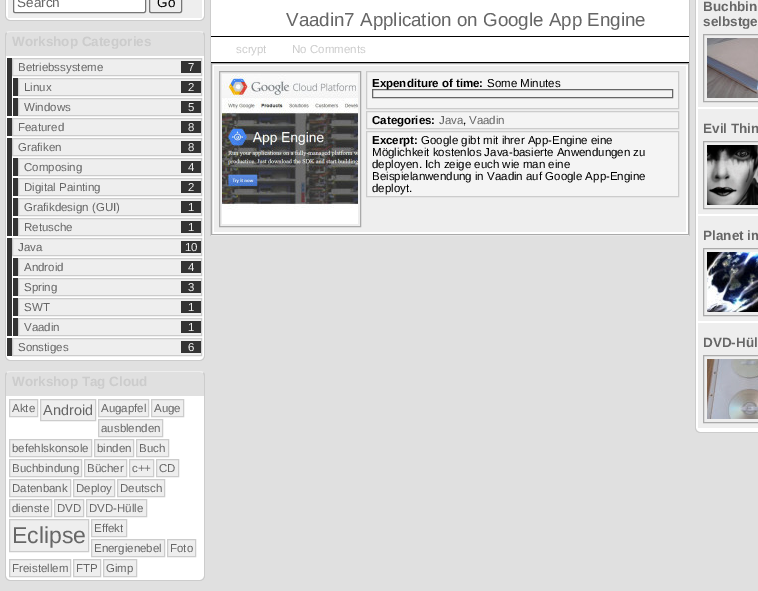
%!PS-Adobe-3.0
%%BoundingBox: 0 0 758 591
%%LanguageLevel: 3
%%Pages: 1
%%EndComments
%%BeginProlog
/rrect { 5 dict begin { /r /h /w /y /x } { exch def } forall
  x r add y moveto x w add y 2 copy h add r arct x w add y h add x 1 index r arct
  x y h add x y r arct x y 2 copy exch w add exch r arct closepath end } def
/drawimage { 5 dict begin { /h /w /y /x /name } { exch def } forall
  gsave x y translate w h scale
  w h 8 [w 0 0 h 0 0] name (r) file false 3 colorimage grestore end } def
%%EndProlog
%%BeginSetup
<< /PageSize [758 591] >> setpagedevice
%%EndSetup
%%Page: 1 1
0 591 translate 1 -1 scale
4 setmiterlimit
0.878 setgray
0 0 758 591 rectfill
1 setgray
newpath 5 -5 moveto 205 -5 lineto 205 16 lineto 205 19 203 21 200 21 curveto 10 21 lineto 7 21 5 19 5 16 curveto closepath fill
0.8 setgray
newpath 5 -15 moveto 205 -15 lineto 205 16 lineto 205 19 203 21 200 21 curveto 10 21 lineto 7 21 5 19 5 16 curveto closepath 6 -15 moveto 204 -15 lineto 204 16 lineto 204 18 202 20 200 20 curveto 10 20 lineto 8 20 6 18 6 16 curveto closepath eofill
0.933 setgray
8 0 194 18 rectfill
1 setgray
13.5 -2.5 132 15 1.5 rrect gsave fill grestore
0.463 setgray
stroke
149.5 -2.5 32 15 1.5 rrect stroke
0.933 setgray
newpath 10 31 moveto 8 31 7 32 6 32 curveto 7 33 lineto 10 32 lineto 200 32 lineto 203 33 lineto 204 32 lineto 203 32 202 31 200 31 curveto closepath fill
0.8 setgray
newpath 204 56 moveto 205 56 lineto 205 36 lineto 205 34.5 204.5 33 203.5 32.5 curveto 203 33 lineto 203.5 34 204 35 204 36 curveto closepath fill
newpath 5 56 moveto 6 56 lineto 6 36 lineto 6 35 6.5 34 7 33 curveto 6.5 32.5 lineto 5.5 33 5 34.5 5 36 curveto closepath fill
1 setgray
newpath 5 56 moveto 205 56 lineto 205 356 lineto 205 359 203 361 200 361 curveto 10 361 lineto 7 361 5 359 5 356 curveto closepath fill
0.8 setgray
newpath 5 56 moveto 205 56 lineto 205 356 lineto 205 359 203 361 200 361 curveto 10 361 lineto 7 361 5 359 5 356 curveto closepath 6 56 moveto 204 56 lineto 204 356 lineto 204 358 202 360 200 360 curveto 10 360 lineto 8 360 6 358 6 356 curveto closepath eofill
0.2 setgray
7 58 5 58 rectfill
0.933 setgray
newpath 12.5 58.5 moveto 201.5 58.5 lineto 201.5 75.5 lineto 12.5 75.5 lineto closepath gsave fill grestore
0.8 setgray
stroke
0.2 setgray
181 61 20 12 rectfill
13 78 5 18 rectfill
0.933 setgray
newpath 18.5 78.5 moveto 201.5 78.5 lineto 201.5 95.5 lineto 18.5 95.5 lineto closepath gsave fill grestore
0.8 setgray
stroke
0.2 setgray
181 81 20 12 rectfill
13 98 5 18 rectfill
0.933 setgray
newpath 18.5 98.5 moveto 201.5 98.5 lineto 201.5 115.5 lineto 18.5 115.5 lineto closepath gsave fill grestore
0.8 setgray
stroke
0.2 setgray
181 101 20 12 rectfill
7 118 5 18 rectfill
0.933 setgray
newpath 12.5 118.5 moveto 201.5 118.5 lineto 201.5 135.5 lineto 12.5 135.5 lineto closepath gsave fill grestore
0.8 setgray
stroke
0.2 setgray
181 121 20 12 rectfill
7 138 5 98 rectfill
0.933 setgray
newpath 12.5 138.5 moveto 201.5 138.5 lineto 201.5 155.5 lineto 12.5 155.5 lineto closepath gsave fill grestore
0.8 setgray
stroke
0.2 setgray
181 141 20 12 rectfill
13 158 5 18 rectfill
0.933 setgray
newpath 18.5 158.5 moveto 201.5 158.5 lineto 201.5 175.5 lineto 18.5 175.5 lineto closepath gsave fill grestore
0.8 setgray
stroke
0.2 setgray
181 161 20 12 rectfill
13 178 5 18 rectfill
0.933 setgray
newpath 18.5 178.5 moveto 201.5 178.5 lineto 201.5 195.5 lineto 18.5 195.5 lineto closepath gsave fill grestore
0.8 setgray
stroke
0.2 setgray
181 181 20 12 rectfill
13 198 5 18 rectfill
0.933 setgray
newpath 18.5 198.5 moveto 201.5 198.5 lineto 201.5 215.5 lineto 18.5 215.5 lineto closepath gsave fill grestore
0.8 setgray
stroke
0.2 setgray
181 201 20 12 rectfill
13 218 5 18 rectfill
0.933 setgray
newpath 18.5 218.5 moveto 201.5 218.5 lineto 201.5 235.5 lineto 18.5 235.5 lineto closepath gsave fill grestore
0.8 setgray
stroke
0.2 setgray
181 221 20 12 rectfill
7 238 5 98 rectfill
0.933 setgray
newpath 12.5 238.5 moveto 201.5 238.5 lineto 201.5 255.5 lineto 12.5 255.5 lineto closepath gsave fill grestore
0.8 setgray
stroke
0.2 setgray
181 241 20 12 rectfill
13 258 5 18 rectfill
0.933 setgray
newpath 18.5 258.5 moveto 201.5 258.5 lineto 201.5 275.5 lineto 18.5 275.5 lineto closepath gsave fill grestore
0.8 setgray
stroke
0.2 setgray
181 261 20 12 rectfill
13 278 5 18 rectfill
0.933 setgray
newpath 18.5 278.5 moveto 201.5 278.5 lineto 201.5 295.5 lineto 18.5 295.5 lineto closepath gsave fill grestore
0.8 setgray
stroke
0.2 setgray
181 281 20 12 rectfill
13 298 5 18 rectfill
0.933 setgray
newpath 18.5 298.5 moveto 201.5 298.5 lineto 201.5 315.5 lineto 18.5 315.5 lineto closepath gsave fill grestore
0.8 setgray
stroke
0.2 setgray
181 301 20 12 rectfill
13 318 5 18 rectfill
0.933 setgray
newpath 18.5 318.5 moveto 201.5 318.5 lineto 201.5 335.5 lineto 18.5 335.5 lineto closepath gsave fill grestore
0.8 setgray
stroke
0.2 setgray
181 321 20 12 rectfill
7 338 5 18 rectfill
0.933 setgray
newpath 12.5 338.5 moveto 201.5 338.5 lineto 201.5 355.5 lineto 12.5 355.5 lineto closepath gsave fill grestore
0.8 setgray
stroke
0.2 setgray
181 341 20 12 rectfill
0.933 setgray
newpath 10 371 moveto 8 371 7 372 6 372 curveto 7 373 lineto 10 372 lineto 200 372 lineto 203 373 lineto 204 372 lineto 203 372 202 371 200 371 curveto closepath fill
0.8 setgray
newpath 204 396 moveto 205 396 lineto 205 376 lineto 205 374.5 204.5 373 203.5 372.5 curveto 203 373 lineto 203.5 374 204 375 204 376 curveto closepath fill
newpath 5 396 moveto 6 396 lineto 6 376 lineto 6 375 6.5 374 7 373 curveto 6.5 372.5 lineto 5.5 373 5 374.5 5 376 curveto closepath fill
1 setgray
newpath 5 396 moveto 205 396 lineto 205 576 lineto 205 579 203 581 200 581 curveto 10 581 lineto 7 581 5 579 5 576 curveto closepath fill
0.8 setgray
newpath 5 396 moveto 205 396 lineto 205 576 lineto 205 579 203 581 200 581 curveto 10 581 lineto 7 581 5 579 5 576 curveto closepath 6 396 moveto 204 396 lineto 204 576 lineto 204 578 202 580 200 580 curveto 10 580 lineto 8 580 6 578 6 576 curveto closepath eofill
0.933 setgray
newpath 9.5 399.5 moveto 37.5 399.5 lineto 37.5 416.5 lineto 9.5 416.5 lineto closepath gsave fill grestore
0.8 setgray
stroke
0.933 setgray
newpath 40.5 399.5 moveto 95.5 399.5 lineto 95.5 420.5 lineto 40.5 420.5 lineto closepath gsave fill grestore
0.8 setgray
stroke
0.933 setgray
newpath 98.5 399.5 moveto 148.5 399.5 lineto 148.5 416.5 lineto 98.5 416.5 lineto closepath gsave fill grestore
0.8 setgray
stroke
0.933 setgray
newpath 151.5 399.5 moveto 183.5 399.5 lineto 183.5 416.5 lineto 151.5 416.5 lineto closepath gsave fill grestore
0.8 setgray
stroke
0.933 setgray
newpath 98.5 419.5 moveto 162.5 419.5 lineto 162.5 436.5 lineto 98.5 436.5 lineto closepath gsave fill grestore
0.8 setgray
stroke
0.933 setgray
newpath 9.5 439.5 moveto 91.5 439.5 lineto 91.5 456.5 lineto 9.5 456.5 lineto closepath gsave fill grestore
0.8 setgray
stroke
0.933 setgray
newpath 94.5 439.5 moveto 133.5 439.5 lineto 133.5 456.5 lineto 94.5 456.5 lineto closepath gsave fill grestore
0.8 setgray
stroke
0.933 setgray
newpath 136.5 439.5 moveto 168.5 439.5 lineto 168.5 456.5 lineto 136.5 456.5 lineto closepath gsave fill grestore
0.8 setgray
stroke
0.933 setgray
newpath 9.5 459.5 moveto 81.5 459.5 lineto 81.5 476.5 lineto 9.5 476.5 lineto closepath gsave fill grestore
0.8 setgray
stroke
0.933 setgray
newpath 84.5 459.5 moveto 126.5 459.5 lineto 126.5 476.5 lineto 84.5 476.5 lineto closepath gsave fill grestore
0.8 setgray
stroke
0.933 setgray
newpath 129.5 459.5 moveto 153.5 459.5 lineto 153.5 476.5 lineto 129.5 476.5 lineto closepath gsave fill grestore
0.8 setgray
stroke
0.933 setgray
newpath 156.5 459.5 moveto 178.5 459.5 lineto 178.5 476.5 lineto 156.5 476.5 lineto closepath gsave fill grestore
0.8 setgray
stroke
0.933 setgray
newpath 9.5 479.5 moveto 70.5 479.5 lineto 70.5 496.5 lineto 9.5 496.5 lineto closepath gsave fill grestore
0.8 setgray
stroke
0.933 setgray
newpath 73.5 479.5 moveto 114.5 479.5 lineto 114.5 496.5 lineto 73.5 496.5 lineto closepath gsave fill grestore
0.8 setgray
stroke
0.933 setgray
newpath 117.5 479.5 moveto 164.5 479.5 lineto 164.5 496.5 lineto 117.5 496.5 lineto closepath gsave fill grestore
0.8 setgray
stroke
0.933 setgray
newpath 9.5 499.5 moveto 51.5 499.5 lineto 51.5 516.5 lineto 9.5 516.5 lineto closepath gsave fill grestore
0.8 setgray
stroke
0.933 setgray
newpath 54.5 499.5 moveto 83.5 499.5 lineto 83.5 516.5 lineto 54.5 516.5 lineto closepath gsave fill grestore
0.8 setgray
stroke
0.933 setgray
newpath 86.5 499.5 moveto 146.5 499.5 lineto 146.5 516.5 lineto 86.5 516.5 lineto closepath gsave fill grestore
0.8 setgray
stroke
0.933 setgray
newpath 9.5 519.5 moveto 88.5 519.5 lineto 88.5 551.5 lineto 9.5 551.5 lineto closepath gsave fill grestore
0.8 setgray
stroke
0.933 setgray
newpath 91.5 519.5 moveto 126.5 519.5 lineto 126.5 536.5 lineto 91.5 536.5 lineto closepath gsave fill grestore
0.8 setgray
stroke
0.933 setgray
newpath 91.5 539.5 moveto 164.5 539.5 lineto 164.5 556.5 lineto 91.5 556.5 lineto closepath gsave fill grestore
0.8 setgray
stroke
0.933 setgray
newpath 167.5 539.5 moveto 195.5 539.5 lineto 195.5 556.5 lineto 167.5 556.5 lineto closepath gsave fill grestore
0.8 setgray
stroke
0.933 setgray
newpath 9.5 559.5 moveto 70.5 559.5 lineto 70.5 576.5 lineto 9.5 576.5 lineto closepath gsave fill grestore
0.8 setgray
stroke
0.933 setgray
newpath 73.5 559.5 moveto 100.5 559.5 lineto 100.5 576.5 lineto 73.5 576.5 lineto closepath gsave fill grestore
0.8 setgray
stroke
0.933 setgray
newpath 103.5 559.5 moveto 136.5 559.5 lineto 136.5 576.5 lineto 103.5 576.5 lineto closepath gsave fill grestore
0.8 setgray
stroke
689 0 1 236 rectfill
210 0 1 236 rectfill
1 setgray
211 0 478 236 rectfill
0 setgray
211 36 478 1 rectfill
211 62 478 1 rectfill
0.667 setgray
211.5 63.5 477 171 rectstroke
0.933 setgray
214 66 472 166 rectfill
0.667 setgray
219.5 71.5 141 155 rectstroke
(images/1.raw) 222 74 136 150 drawimage
0.957 setgray
newpath 366.5 71.5 moveto 678.5 71.5 lineto 678.5 108.5 lineto 366.5 108.5 lineto closepath gsave fill grestore
0.8 setgray
stroke
0.4 setgray
372.5 89.5 300 8 rectstroke
0.957 setgray
newpath 366.5 111.5 moveto 678.5 111.5 lineto 678.5 128.5 lineto 366.5 128.5 lineto closepath gsave fill grestore
0.8 setgray
stroke
0.957 setgray
newpath 366.5 131.5 moveto 678.5 131.5 lineto 678.5 196.5 lineto 366.5 196.5 lineto closepath gsave fill grestore
0.8 setgray
stroke
1 setgray
newpath 695 -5 moveto 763 -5 lineto 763 428 lineto 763 431 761 433 758 433 curveto 700 433 lineto 697 433 695 431 695 428 curveto closepath fill
0.8 setgray
newpath 695 -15 moveto 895 -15 lineto 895 428 lineto 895 431 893 433 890 433 curveto 700 433 lineto 697 433 695 431 695 428 curveto closepath 696 -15 moveto 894 -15 lineto 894 428 lineto 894 430 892 432 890 432 curveto 700 432 lineto 698 432 696 430 696 428 curveto closepath eofill
0.933 setgray
698 0 60 107 rectfill
0.667 setgray
703.5 34.5 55 67 rectstroke
(images/2.raw) 707 38 51 60 drawimage
0.933 setgray
698 109 60 105 rectfill
0.667 setgray
703.5 141.5 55 67 rectstroke
(images/3.raw) 707 145 51 60 drawimage
0.933 setgray
698 216 60 105 rectfill
0.667 setgray
703.5 248.5 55 67 rectstroke
(images/4.raw) 707 252 51 60 drawimage
0.933 setgray
698 323 60 105 rectfill
0.667 setgray
703.5 355.5 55 67 rectstroke
(images/5.raw) 707 359 51 60 drawimage
/LiberationSans-Regular [13.5 0 0 -13.5 0 0] selectfont
0.4 setgray
17 7 moveto (Search) show
0 setgray
157 7 moveto (Go) show
/LiberationSans-Bold [13.5 0 0 -13.5 0 0] selectfont
0.8 setgray
12 46 moveto (Workshop Categories) show
/LiberationSans-Regular [11.5 0 0 -11.5 0 0] selectfont
0.4 setgray
18 71 moveto (Betriebssysteme) show
0.933 setgray
188 71 moveto (7) show
0.4 setgray
24 91 moveto (Linux) show
0.933 setgray
188 91 moveto (2) show
0.4 setgray
24 111 moveto (Windows) show
0.933 setgray
188 111 moveto (5) show
0.4 setgray
18 131 moveto (Featured) show
0.933 setgray
188 131 moveto (8) show
0.4 setgray
18 151 moveto (Grafiken) show
0.933 setgray
188 151 moveto (8) show
0.4 setgray
24 171 moveto (Composing) show
0.933 setgray
188 171 moveto (4) show
0.4 setgray
24 191 moveto (Digital Painting) show
0.933 setgray
188 191 moveto (2) show
0.4 setgray
24 211 moveto (Grafikdesign \(GUI\)) show
0.933 setgray
188 211 moveto (1) show
0.4 setgray
24 231 moveto (Retusche) show
0.933 setgray
188 231 moveto (1) show
0.4 setgray
18 251 moveto (Java) show
0.933 setgray
185 251 moveto (10) show
0.4 setgray
24 271 moveto (Android) show
0.933 setgray
188 271 moveto (4) show
0.4 setgray
24 291 moveto (Spring) show
0.933 setgray
188 291 moveto (3) show
0.4 setgray
24 311 moveto (SWT) show
0.933 setgray
188 311 moveto (1) show
0.4 setgray
24 331 moveto (Vaadin) show
0.933 setgray
188 331 moveto (1) show
0.4 setgray
18 351 moveto (Sonstiges) show
0.933 setgray
188 351 moveto (6) show
/LiberationSans-Bold [13.5 0 0 -13.5 0 0] selectfont
0.8 setgray
12 386 moveto (Workshop Tag Cloud) show
/LiberationSans-Regular [11.5 0 0 -11.5 0 0] selectfont
0.4 setgray
12 412 moveto (Akte) show
/LiberationSans-Regular [14.5 0 0 -14.5 0 0] selectfont
43 415 moveto (Android) show
/LiberationSans-Regular [11.5 0 0 -11.5 0 0] selectfont
101 412 moveto (Augapfel) show
154 412 moveto (Auge) show
101 432 moveto (ausblenden) show
12 452 moveto (befehlskonsole) show
97 452 moveto (binden) show
139 452 moveto (Buch) show
12 472 moveto (Buchbindung) show
87 472 moveto (Bücher) show
132 472 moveto (c++) show
159 472 moveto (CD) show
12 492 moveto (Datenbank) show
76 492 moveto (Deploy) show
120 492 moveto (Deutsch) show
12 512 moveto (dienste) show
57 512 moveto (DVD) show
89 512 moveto (DVD-Hülle) show
/LiberationSans-Regular [23 0 0 -23 0 0] selectfont
12 543 moveto (Eclipse) show
/LiberationSans-Regular [11.5 0 0 -11.5 0 0] selectfont
94 532 moveto (Effekt) show
94 552 moveto (Energienebel) show
170 552 moveto (Foto) show
12 572 moveto (Freistellem) show
76 572 moveto (FTP) show
106 572 moveto (Gimp) show
/LiberationSans-Regular [18.75 0 0 -18.75 0 0] selectfont
286 26 moveto (Vaadin7 Application on Google App Engine) show
/LiberationSans-Regular [11.5 0 0 -11.5 0 0] selectfont
0.8 setgray
236 53 moveto (scrypt) show
292 53 moveto (No Comments) show
/LiberationSans-Bold [11.5 0 0 -11.5 0 0] selectfont
0 setgray
372 87 moveto (Expenditure of time:) show
/LiberationSans-Regular [11.5 0 0 -11.5 0 0] selectfont
487 87 moveto (Some Minutes) show
/LiberationSans-Bold [11.5 0 0 -11.5 0 0] selectfont
372 124 moveto (Categories:) show
/LiberationSans-Regular [11.5 0 0 -11.5 0 0] selectfont
0.4 setgray
439 124 moveto (Java) show
0 setgray
463 124 moveto (,) show
0.4 setgray
469 124 moveto (Vaadin) show
/LiberationSans-Bold [11.5 0 0 -11.5 0 0] selectfont
0 setgray
372 144 moveto (Excerpt:) show
/LiberationSans-Regular [11.5 0 0 -11.5 0 0] selectfont
421 144 moveto (Google gibt mit ihrer App-Engine eine) show
372 156 moveto (Möglichkeit kostenlos Java-basierte Anwendungen zu) show
372 168 moveto (deployen. Ich zeige euch wie man eine) show
372 180 moveto (Beispielanwendung in Vaadin auf Google App-Engine) show
372 192 moveto (deployt.) show
/LiberationSans-Bold [13.5 0 0 -13.5 0 0] selectfont
0.4 setgray
703 11 moveto (Buchbin) show
703 26 moveto (selbstge) show
703 133 moveto (Evil Thin) show
703 240 moveto (Planet im) show
703 347 moveto (DVD-Hül) show
showpage
%%EOF
